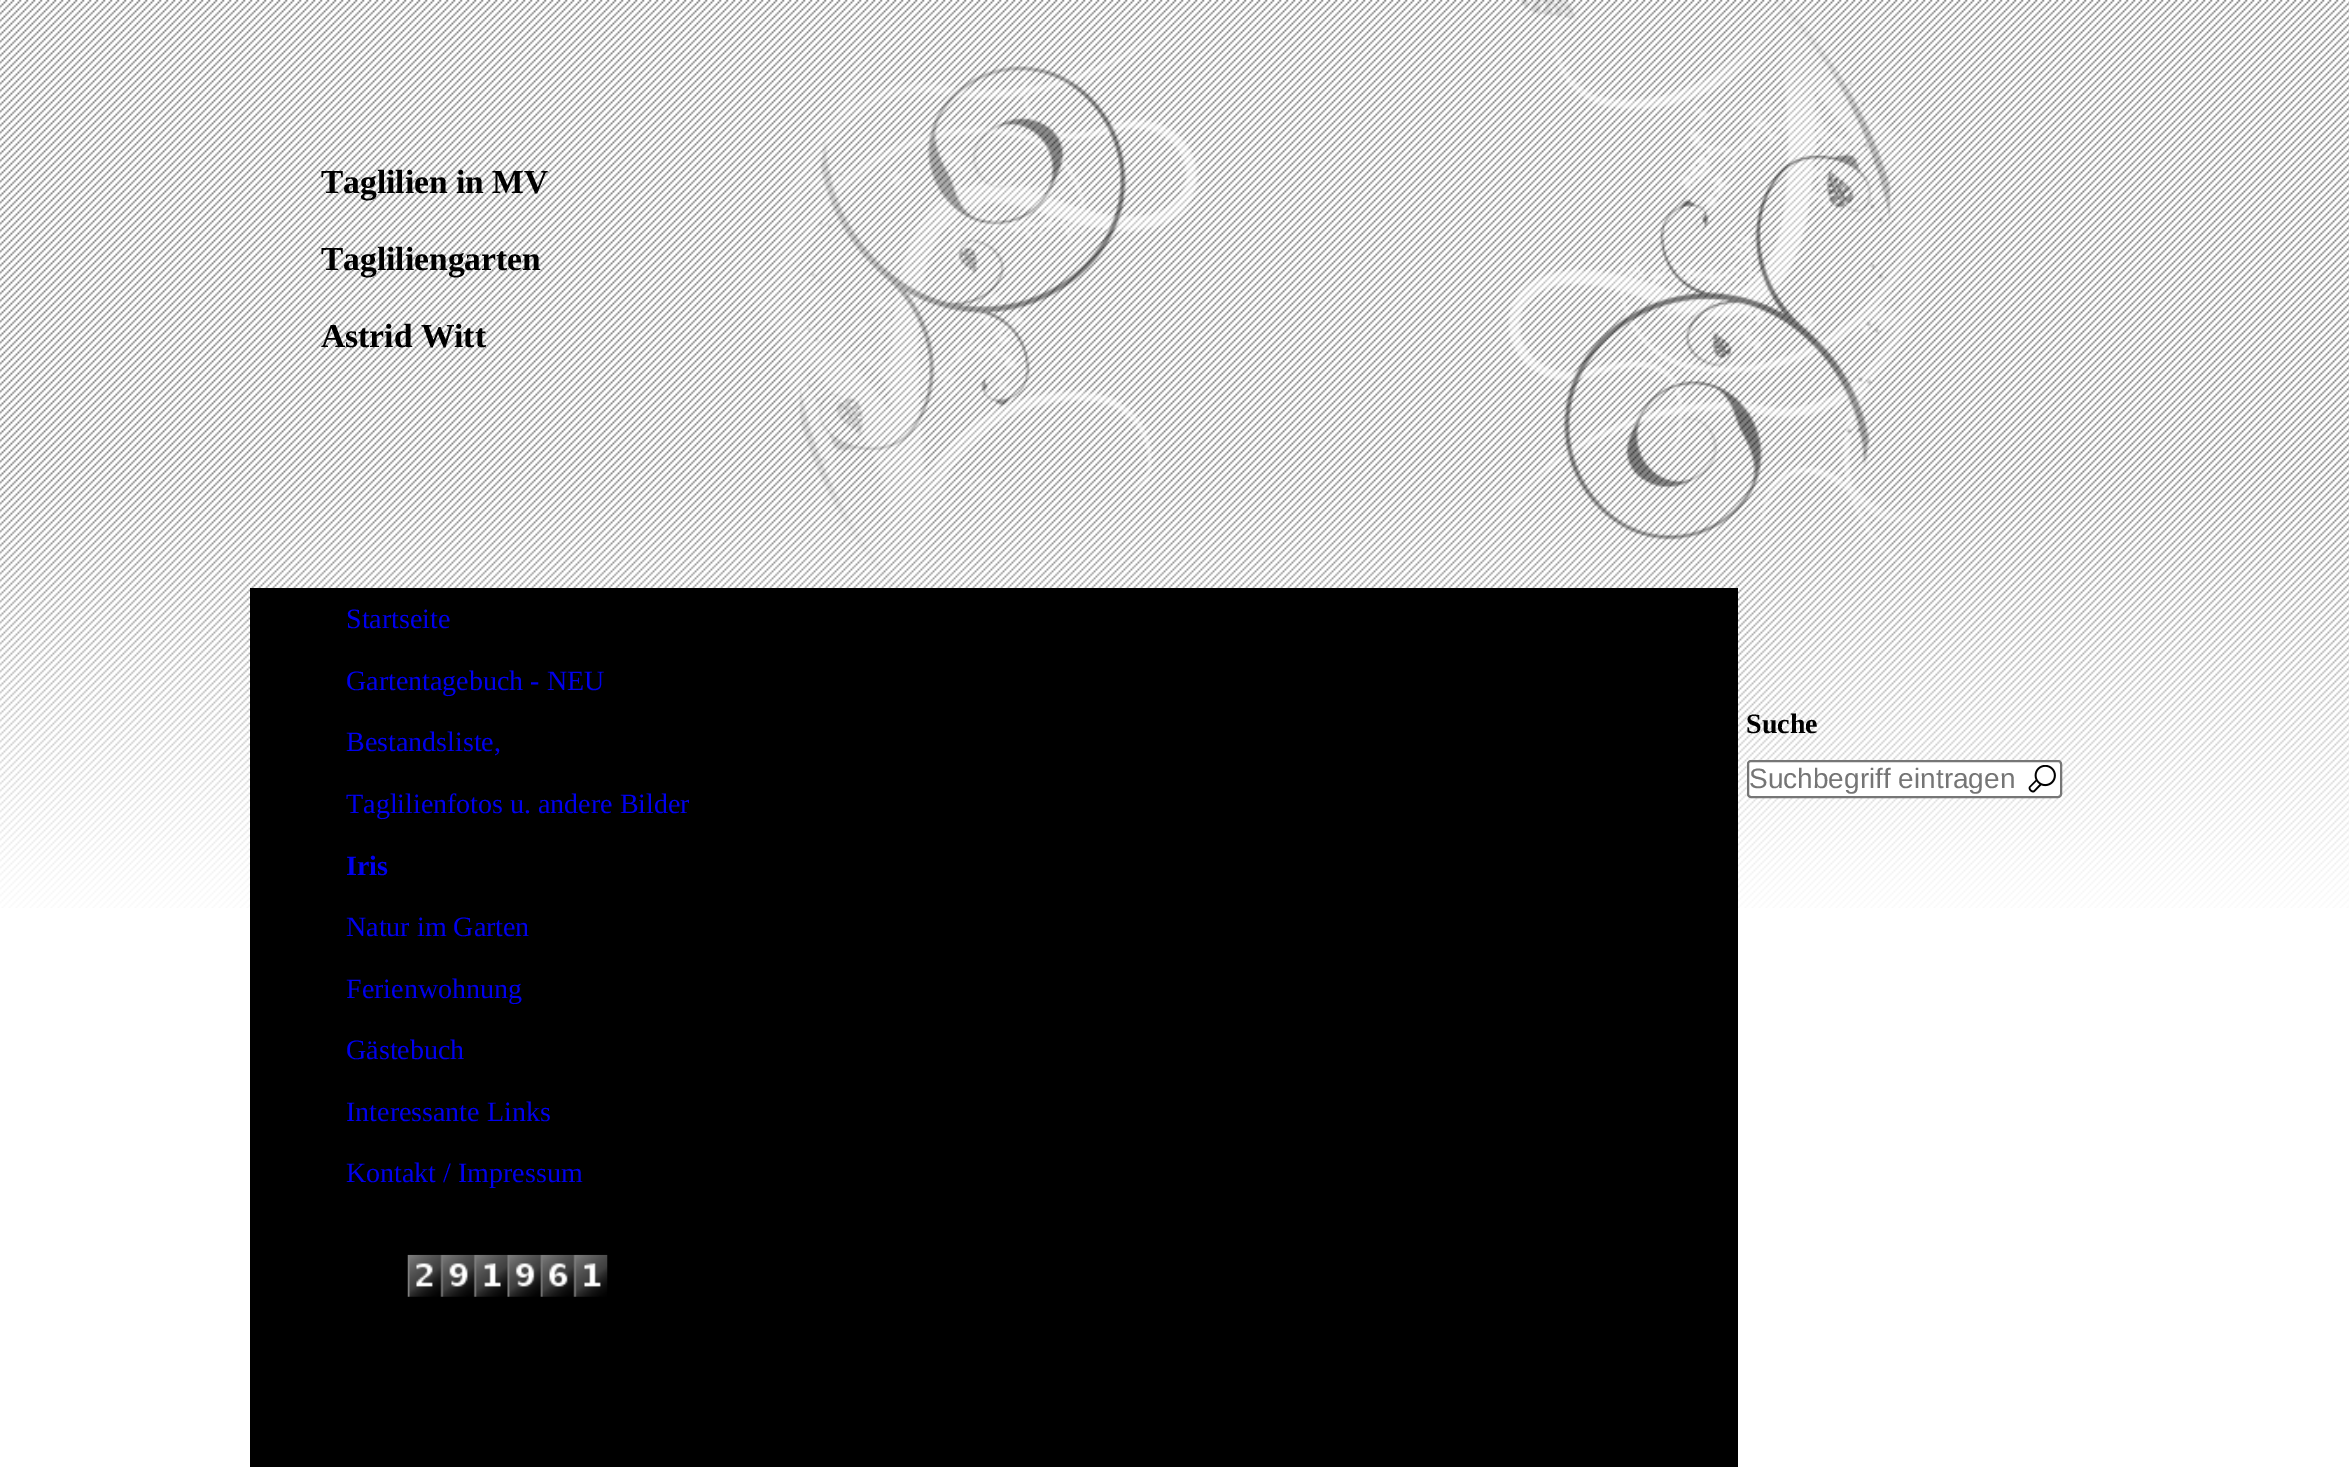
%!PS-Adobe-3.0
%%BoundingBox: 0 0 2349 1475
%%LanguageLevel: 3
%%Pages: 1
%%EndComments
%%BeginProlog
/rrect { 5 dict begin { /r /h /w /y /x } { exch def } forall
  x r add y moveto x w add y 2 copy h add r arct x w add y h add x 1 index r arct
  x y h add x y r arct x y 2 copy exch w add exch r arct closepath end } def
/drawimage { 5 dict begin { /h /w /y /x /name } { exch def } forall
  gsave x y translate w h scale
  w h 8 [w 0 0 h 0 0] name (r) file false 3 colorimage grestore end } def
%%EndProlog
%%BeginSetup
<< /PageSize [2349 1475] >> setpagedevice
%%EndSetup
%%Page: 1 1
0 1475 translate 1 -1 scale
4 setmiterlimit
1 setgray
0 0 2349 1475 rectfill
(images/1.raw) 0 0 2349 908 drawimage
(images/2.raw) 739 0 1196 587 drawimage
0 setgray
250 588 1488 879 rectfill
(images/3.raw) 407 1254 201 43 drawimage
1 setgray
1748 761 313 36 3 rrect gsave fill grestore
0.463 setgray
2 setlinewidth
stroke
(images/4.raw) 2028 765 28 28 drawimage
/LiberationSerif-Bold [33.5 0 0 -33.5 0 0] selectfont
0 setgray
321 193 moveto (Taglilien in MV) show
321 270 moveto (Tagliliengarten) show
321 347 moveto (Astrid Witt) show
/LiberationSerif-Regular [28 0 0 -28 0 0] selectfont
0 0 0.933 setrgbcolor
346 628 moveto (Startseite) show
346 690 moveto (Gartentagebuch - NEU) show
346 751 moveto (Bestandsliste,) show
346 813 moveto (Taglilienfotos u. andere Bilder) show
/LiberationSerif-Bold [28 0 0 -28 0 0] selectfont
346 875 moveto (Iris) show
/LiberationSerif-Regular [28 0 0 -28 0 0] selectfont
346 936 moveto (Natur im Garten) show
346 998 moveto (Ferienwohnung) show
346 1059 moveto (Gästebuch) show
346 1121 moveto (Interessante Links) show
346 1182 moveto (Kontakt / Impressum) show
/LiberationSerif-Bold [28 0 0 -28 0 0] selectfont
0 setgray
1746 733 moveto (Suche) show
/LiberationSans-Regular [28 0 0 -28 0 0] selectfont
0.459 setgray
1749 788 moveto (Suchbegriff eintragen) show
showpage
%%EOF
